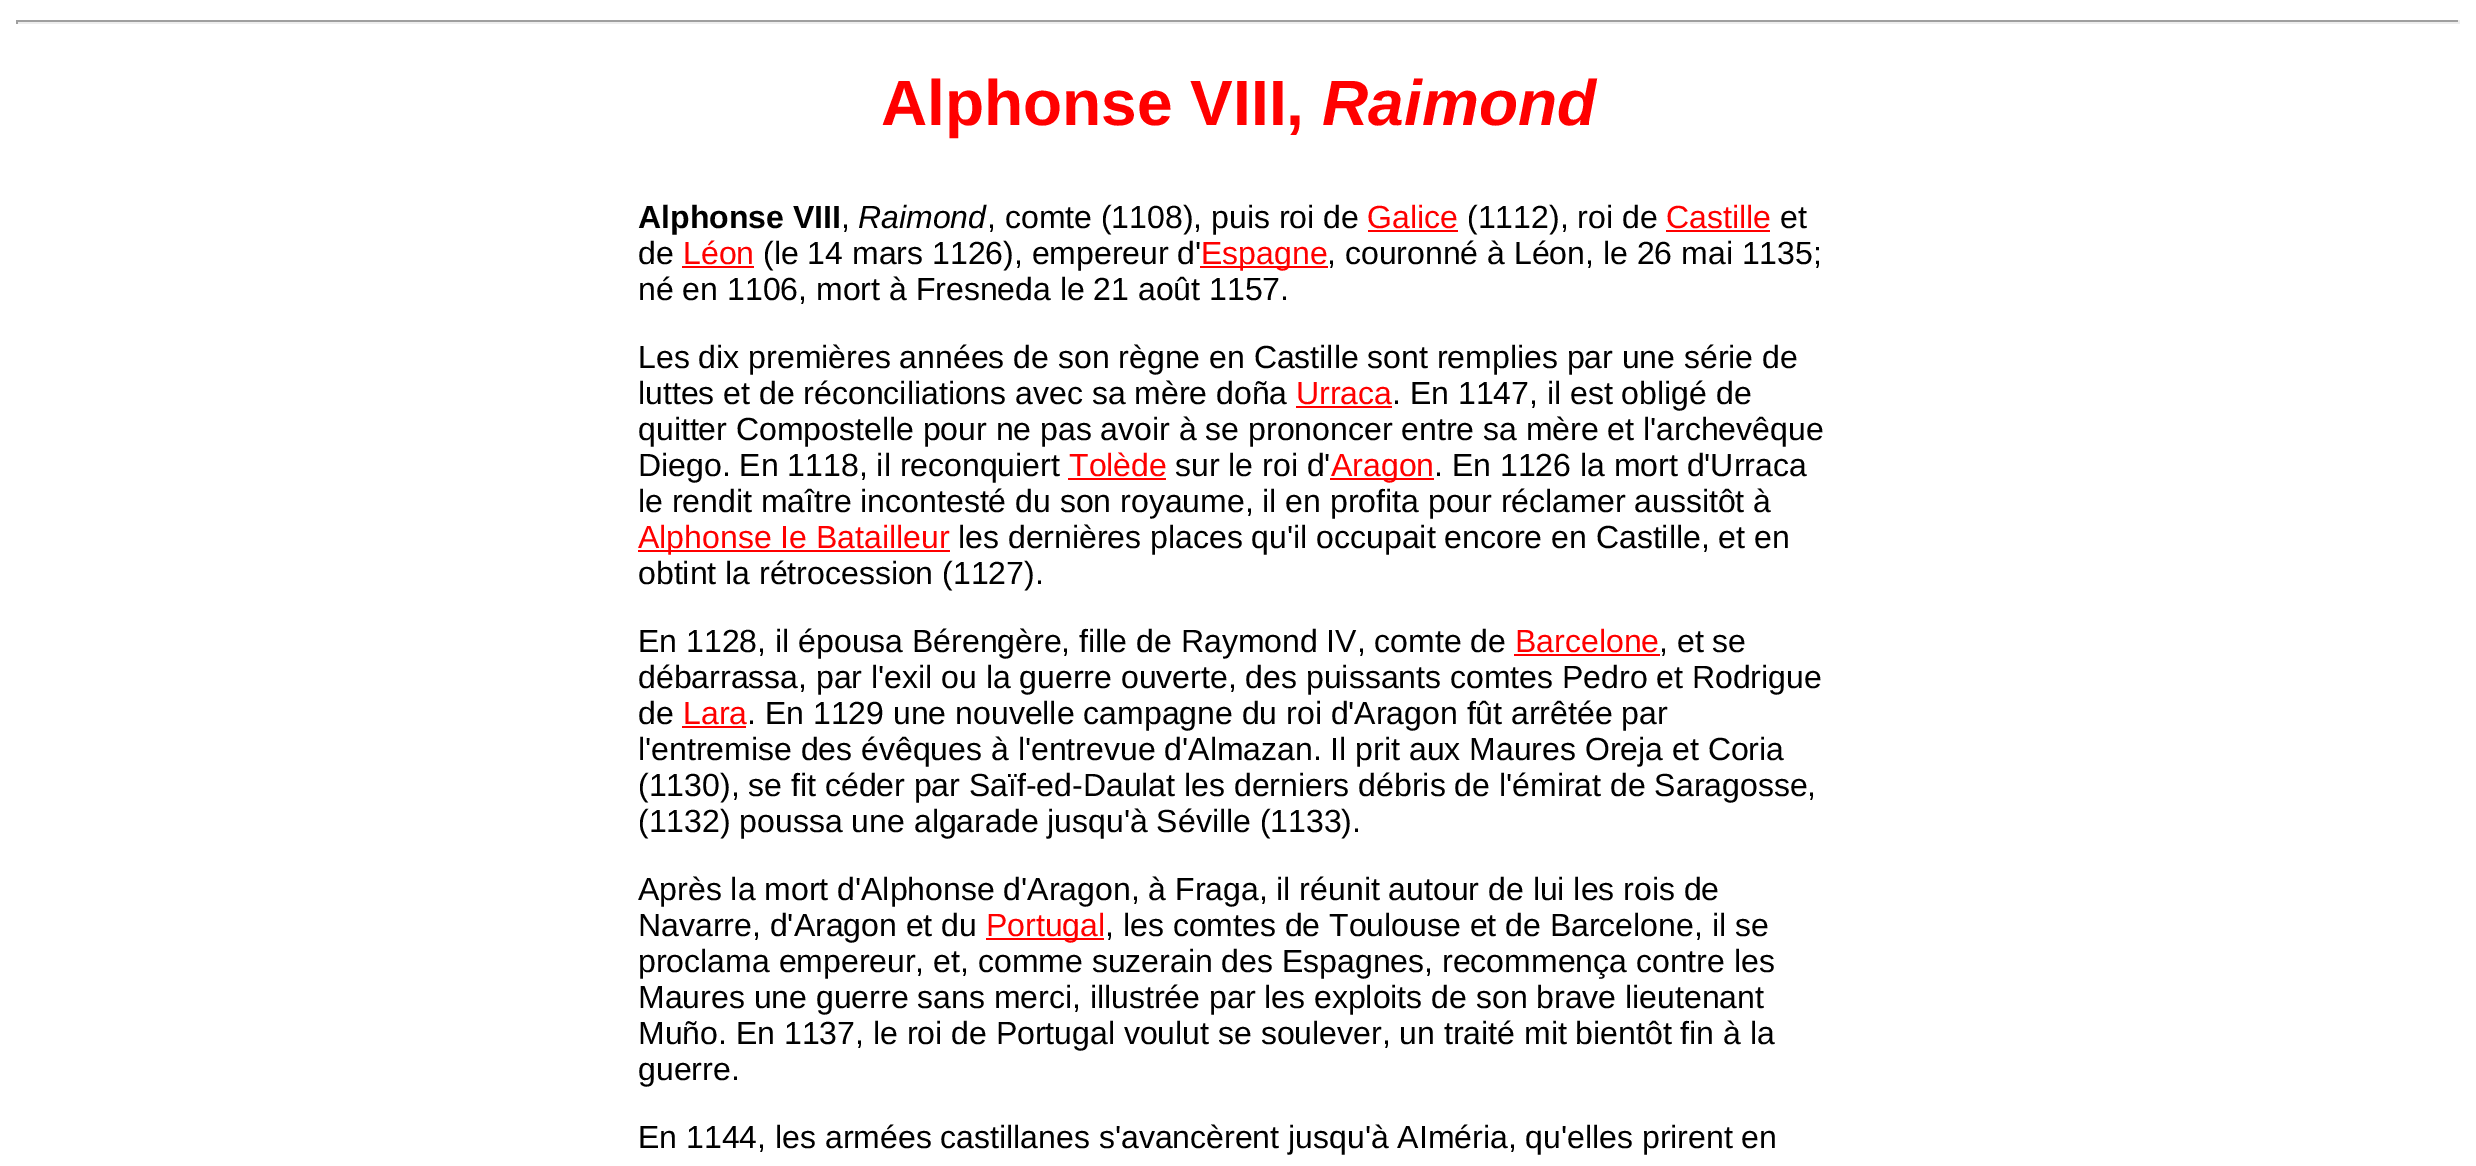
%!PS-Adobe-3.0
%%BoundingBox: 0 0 2476 1166
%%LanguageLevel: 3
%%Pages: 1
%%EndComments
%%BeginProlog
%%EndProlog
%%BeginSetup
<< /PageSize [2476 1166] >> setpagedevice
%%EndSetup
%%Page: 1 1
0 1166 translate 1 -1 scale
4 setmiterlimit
1 setgray
0 0 2476 1166 rectfill
0.624 setgray
16 20 2444 2 rectfill
0.933 setgray
2458 20 2 4 rectfill
16 22 2444 2 rectfill
0.624 setgray
16 20 2 4 rectfill
1 0 0 setrgbcolor
1368 230 90 2 rectfill
1666 230 104 2 rectfill
682 266 72 2 rectfill
1200 266 128 2 rectfill
1296 406 96 2 rectfill
1068 478 98 2 rectfill
1330 478 104 2 rectfill
638 550 312 2 rectfill
1514 654 146 2 rectfill
682 726 64 2 rectfill
986 938 118 2 rectfill
/LiberationSans-Bold [64 0 0 -64 0 0] selectfont
881 125 moveto (Alphonse VIII,) show
/LiberationSans-BoldItalic [64 0 0 -64 0 0] selectfont
1322 125 moveto (Raimond) show
/LiberationSans-Bold [32 0 0 -32 0 0] selectfont
0 setgray
638 228 moveto (Alphonse VIII) show
/LiberationSans-Regular [32 0 0 -32 0 0] selectfont
841 228 moveto (,) show
/LiberationSans-Italic [32 0 0 -32 0 0] selectfont
858 228 moveto (Raimond) show
/LiberationSans-Regular [32 0 0 -32 0 0] selectfont
987 228 moveto (, comte \(1108\), puis roi de) show
1 0 0 setrgbcolor
1367 228 moveto (Galice) show
0 setgray
1467 228 moveto (\(1112\), roi de) show
1 0 0 setrgbcolor
1666 228 moveto (Castille) show
0 setgray
1780 228 moveto (et) show
638 264 moveto (de) show
1 0 0 setrgbcolor
683 264 moveto (Léon) show
0 setgray
763 264 moveto (\(le 14 mars 1126\), empereur d') show
1 0 0 setrgbcolor
1201 264 moveto (Espagne) show
0 setgray
1327 264 moveto (, couronné à Léon, le 26 mai 1135;) show
638 300 moveto (né en 1106, mort à Fresneda le 21 août 1157.) show
638 368 moveto (Les dix premières années de son règne en Castille sont remplies par une série de) show
638 404 moveto (luttes et de réconciliations avec sa mère doña) show
1 0 0 setrgbcolor
1296 404 moveto (Urraca) show
0 setgray
1392 404 moveto (. En 1147, il est obligé de) show
638 440 moveto (quitter Compostelle pour ne pas avoir à se prononcer entre sa mère et l'archevêque) show
638 476 moveto (Diego. En 1118, il reconquiert) show
1 0 0 setrgbcolor
1069 476 moveto (Tolède) show
0 setgray
1175 476 moveto (sur le roi d') show
1 0 0 setrgbcolor
1331 476 moveto (Aragon) show
0 setgray
1434 476 moveto (. En 1126 la mort d'Urraca) show
638 512 moveto (le rendit maître incontesté du son royaume, il en profita pour réclamer aussitôt à) show
1 0 0 setrgbcolor
638 548 moveto (Alphonse Ie Batailleur) show
0 setgray
958 548 moveto (les dernières places qu'il occupait encore en Castille, et en) show
638 584 moveto (obtint la rétrocession \(1127\).) show
638 652 moveto (En 1128, il épousa Bérengère, fille de Raymond IV, comte de) show
1 0 0 setrgbcolor
1515 652 moveto (Barcelone) show
0 setgray
1659 652 moveto (, et se) show
638 688 moveto (débarrassa, par l'exil ou la guerre ouverte, des puissants comtes Pedro et Rodrigue) show
638 724 moveto (de) show
1 0 0 setrgbcolor
683 724 moveto (Lara) show
0 setgray
747 724 moveto (. En 1129 une nouvelle campagne du roi d'Aragon fût arrêtée par) show
638 760 moveto (l'entremise des évêques à l'entrevue d'Almazan. Il prit aux Maures Oreja et Coria) show
638 796 moveto (\(1130\), se fit céder par Saïf-ed-Daulat les derniers débris de l'émirat de Saragosse,) show
638 832 moveto (\(1132\) poussa une algarade jusqu'à Séville \(1133\).) show
638 900 moveto (Après la mort d'Alphonse d'Aragon, à Fraga, il réunit autour de lui les rois de) show
638 936 moveto (Navarre, d'Aragon et du) show
1 0 0 setrgbcolor
986 936 moveto (Portugal) show
0 setgray
1105 936 moveto (, les comtes de Toulouse et de Barcelone, il se) show
638 972 moveto (proclama empereur, et, comme suzerain des Espagnes, recommença contre les) show
638 1008 moveto (Maures une guerre sans merci, illustrée par les exploits de son brave lieutenant) show
638 1044 moveto (Muño. En 1137, le roi de Portugal voulut se soulever, un traité mit bientôt fin à la) show
638 1080 moveto (guerre.) show
638 1148 moveto (En 1144, les armées castillanes s'avancèrent jusqu'à AIméria, qu'elles prirent en) show
showpage
%%EOF
